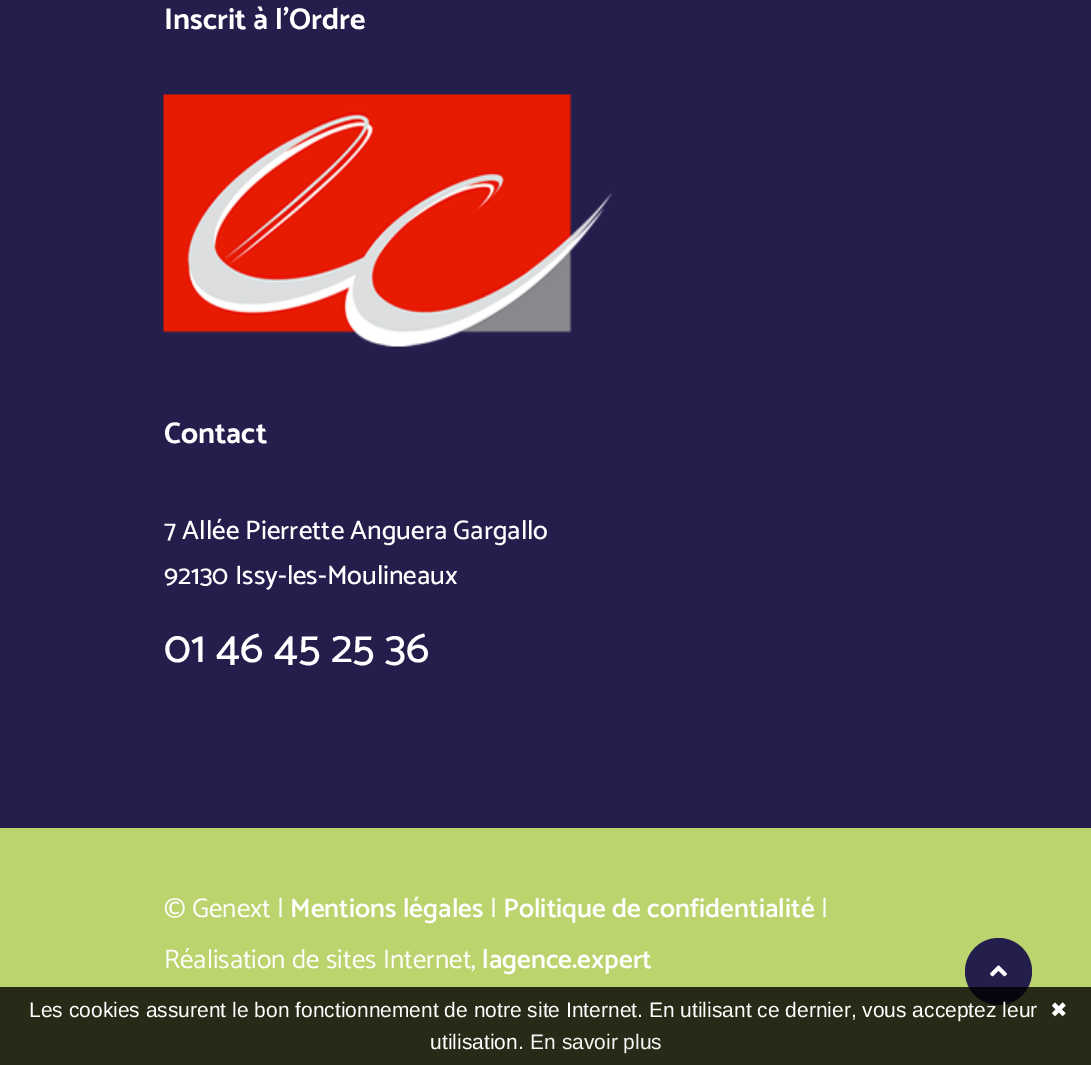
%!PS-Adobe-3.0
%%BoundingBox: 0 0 1091 1065
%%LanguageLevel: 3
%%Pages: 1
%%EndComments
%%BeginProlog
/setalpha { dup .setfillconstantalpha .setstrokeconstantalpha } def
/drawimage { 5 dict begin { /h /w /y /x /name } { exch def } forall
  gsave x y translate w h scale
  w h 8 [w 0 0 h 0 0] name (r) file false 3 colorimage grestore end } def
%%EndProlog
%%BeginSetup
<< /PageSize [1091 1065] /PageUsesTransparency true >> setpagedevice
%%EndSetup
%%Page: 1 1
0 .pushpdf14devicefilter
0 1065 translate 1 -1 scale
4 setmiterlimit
0.737 0.831 0.427 setrgbcolor
0 0 1091 1065 rectfill
0.141 0.118 0.302 setrgbcolor
0 0 1091 828 rectfill
(images/1.raw) 163 94 449 253 drawimage
newpath 998.5 971.5 33.5 0 360 arc closepath fill
(images/2.raw) 990 965 17 12 drawimage
0.8 setalpha
0 setgray
0 987 1091 78 rectfill
/Catamaran-Bold [30 0 0 -30 0 0] selectfont
1 setalpha
1 setgray
164 29 moveto (Inscrit à l'Ordre) show
164 443 moveto (Contact) show
/Catamaran-Medium [27 0 0 -27 0 0] selectfont
164 539 moveto (7 Allée Pierrette Anguera Gargallo) show
164 584 moveto (92130 Issy-les-Moulineaux) show
/Catamaran-Medium [45 0 0 -45 0 0] selectfont
164 662 moveto (01 46 45 25 36) show
/Catamaran-Regular [27 0 0 -27 0 0] selectfont
164 917 moveto (© Genext |) show
/Catamaran-SemiBold [27 0 0 -27 0 0] selectfont
290 917 moveto (Mentions légales) show
/Catamaran-Regular [27 0 0 -27 0 0] selectfont
490 917 moveto (|) show
/Catamaran-SemiBold [27 0 0 -27 0 0] selectfont
503 917 moveto (Politique de confidentialité) show
/Catamaran-Regular [27 0 0 -27 0 0] selectfont
821 917 moveto (|) show
164 968 moveto (Réalisation de sites Internet,) show
/Catamaran-SemiBold [27 0 0 -27 0 0] selectfont
482 968 moveto (lagence.expert) show
/LiberationSans-Regular [21 0 0 -21 0 0] selectfont
29 1017 moveto (Les cookies assurent le bon fonctionnement de notre site Internet. En utilisant ce dernier, vous acceptez leur) show
/DejaVuSans-Regular [21 0 0 -21 0 0] selectfont
1050 1017 moveto (✖) show
/LiberationSans-Regular [21 0 0 -21 0 0] selectfont
430 1049 moveto (utilisation.) show
0.961 setgray
530 1049 moveto (En savoir plus) show
.poppdf14devicefilter showpage
%%EOF
